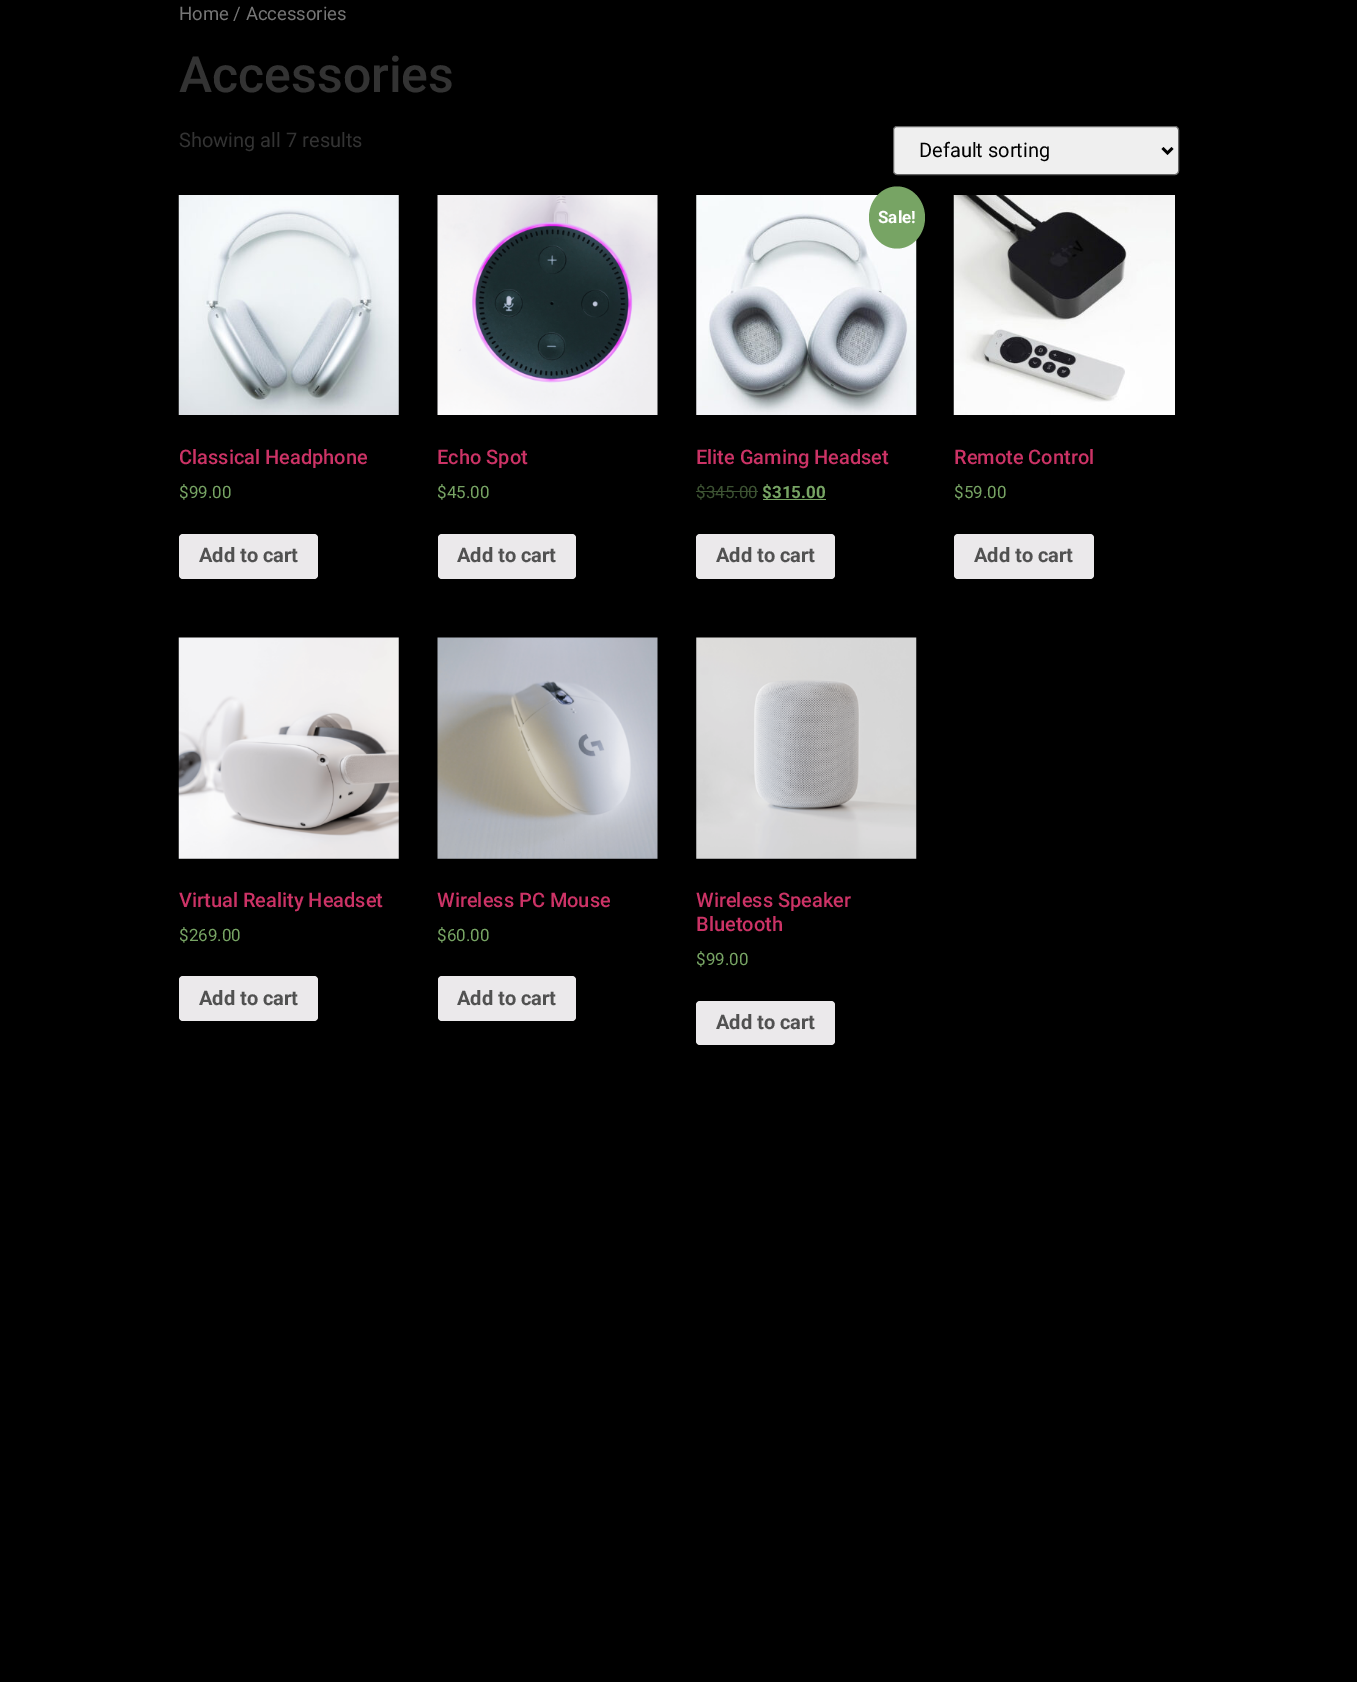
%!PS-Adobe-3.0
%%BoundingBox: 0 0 1357 1682
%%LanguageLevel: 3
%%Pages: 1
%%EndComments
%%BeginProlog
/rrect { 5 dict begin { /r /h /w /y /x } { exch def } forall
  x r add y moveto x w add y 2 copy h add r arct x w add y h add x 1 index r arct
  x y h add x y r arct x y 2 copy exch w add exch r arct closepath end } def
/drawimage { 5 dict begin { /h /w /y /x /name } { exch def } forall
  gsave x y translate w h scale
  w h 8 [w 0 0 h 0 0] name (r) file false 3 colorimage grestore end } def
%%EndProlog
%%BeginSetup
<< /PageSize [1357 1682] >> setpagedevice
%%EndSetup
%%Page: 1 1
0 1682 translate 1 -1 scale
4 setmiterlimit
0 setgray
0 0 1357 1682 rectfill
0.937 setgray
893.5 126.5 285 48 3.5 rrect gsave fill grestore
0.4 setgray
stroke
0 setgray
2.5 setlinewidth
newpath 1162.5 148 moveto 1167.5 153 lineto 1172.5 148 lineto stroke
(images/1.raw) 178 195 221 220 drawimage
0.922 0.914 0.922 setrgbcolor
179 534 139 45 4 rrect fill
(images/2.raw) 437 195 221 220 drawimage
438 534 138 45 4 rrect fill
(images/3.raw) 696 195 221 220 drawimage
0.467 0.643 0.392 setrgbcolor
newpath 897 186.5 moveto 912.5 186.5 925 200.5 925 217.5 curveto 925 234.5 912.5 248.5 897 248.5 curveto 881.5 248.5 869 234.5 869 217.5 curveto 869 200.5 881.5 186.5 897 186.5 curveto closepath fill
0.235 0.322 0.196 setrgbcolor
696 491 62 1 rectfill
0.467 0.643 0.392 setrgbcolor
763 499 63 1 rectfill
0.922 0.914 0.922 setrgbcolor
696 534 139 45 4 rrect fill
(images/4.raw) 953 195 222 220 drawimage
954 534 140 45 4 rrect fill
(images/5.raw) 178 637 221 222 drawimage
179 976 139 45 4 rrect fill
(images/6.raw) 437 637 221 222 drawimage
438 976 138 45 4 rrect fill
(images/7.raw) 696 637 221 222 drawimage
696 1001 139 44 4 rrect fill
/Roboto-Regular [18.5 0 0 -18.5 0 0] selectfont
0.463 setgray
179 20 moveto (Home / Accessories) show
/Roboto-Medium [50 0 0 -50 0 0] selectfont
0.2 setgray
179 92 moveto (Accessories) show
/Roboto-Regular [20 0 0 -20 0 0] selectfont
179 147 moveto (Showing all 7 results) show
0 setgray
919 157 moveto (Default sorting) show
/Roboto-Medium [20 0 0 -20 0 0] selectfont
0.8 0.2 0.4 setrgbcolor
179 464 moveto (Classical Headphone) show
/Roboto-Regular [17 0 0 -17 0 0] selectfont
0.467 0.643 0.392 setrgbcolor
179 498 moveto ($99.00) show
/Roboto-Bold [20 0 0 -20 0 0] selectfont
0.318 setgray
199 562 moveto (Add to cart) show
/Roboto-Medium [20 0 0 -20 0 0] selectfont
0.8 0.2 0.4 setrgbcolor
437 464 moveto (Echo Spot) show
/Roboto-Regular [17 0 0 -17 0 0] selectfont
0.467 0.643 0.392 setrgbcolor
437 498 moveto ($45.00) show
/Roboto-Bold [20 0 0 -20 0 0] selectfont
0.318 setgray
457 562 moveto (Add to cart) show
/Roboto-Bold [17 0 0 -17 0 0] selectfont
1 setgray
878 223 moveto (Sale!) show
/Roboto-Medium [20 0 0 -20 0 0] selectfont
0.8 0.2 0.4 setrgbcolor
696 464 moveto (Elite Gaming Headset) show
/Roboto-Regular [17 0 0 -17 0 0] selectfont
0.235 0.322 0.196 setrgbcolor
696 498 moveto ($345.00) show
/Roboto-Bold [17 0 0 -17 0 0] selectfont
0.467 0.643 0.392 setrgbcolor
762 498 moveto ($315.00) show
/Roboto-Bold [20 0 0 -20 0 0] selectfont
0.318 setgray
716 562 moveto (Add to cart) show
/Roboto-Medium [20 0 0 -20 0 0] selectfont
0.8 0.2 0.4 setrgbcolor
954 464 moveto (Remote Control) show
/Roboto-Regular [17 0 0 -17 0 0] selectfont
0.467 0.643 0.392 setrgbcolor
954 498 moveto ($59.00) show
/Roboto-Bold [20 0 0 -20 0 0] selectfont
0.318 setgray
974 562 moveto (Add to cart) show
/Roboto-Medium [20 0 0 -20 0 0] selectfont
0.8 0.2 0.4 setrgbcolor
179 907 moveto (Virtual Reality Headset) show
/Roboto-Regular [17 0 0 -17 0 0] selectfont
0.467 0.643 0.392 setrgbcolor
179 941 moveto ($269.00) show
/Roboto-Bold [20 0 0 -20 0 0] selectfont
0.318 setgray
199 1005 moveto (Add to cart) show
/Roboto-Medium [20 0 0 -20 0 0] selectfont
0.8 0.2 0.4 setrgbcolor
437 907 moveto (Wireless PC Mouse) show
/Roboto-Regular [17 0 0 -17 0 0] selectfont
0.467 0.643 0.392 setrgbcolor
437 941 moveto ($60.00) show
/Roboto-Bold [20 0 0 -20 0 0] selectfont
0.318 setgray
457 1005 moveto (Add to cart) show
/Roboto-Medium [20 0 0 -20 0 0] selectfont
0.8 0.2 0.4 setrgbcolor
696 907 moveto (Wireless Speaker) show
696 931 moveto (Bluetooth) show
/Roboto-Regular [17 0 0 -17 0 0] selectfont
0.467 0.643 0.392 setrgbcolor
696 965 moveto ($99.00) show
/Roboto-Bold [20 0 0 -20 0 0] selectfont
0.318 setgray
716 1029 moveto (Add to cart) show
showpage
%%EOF
